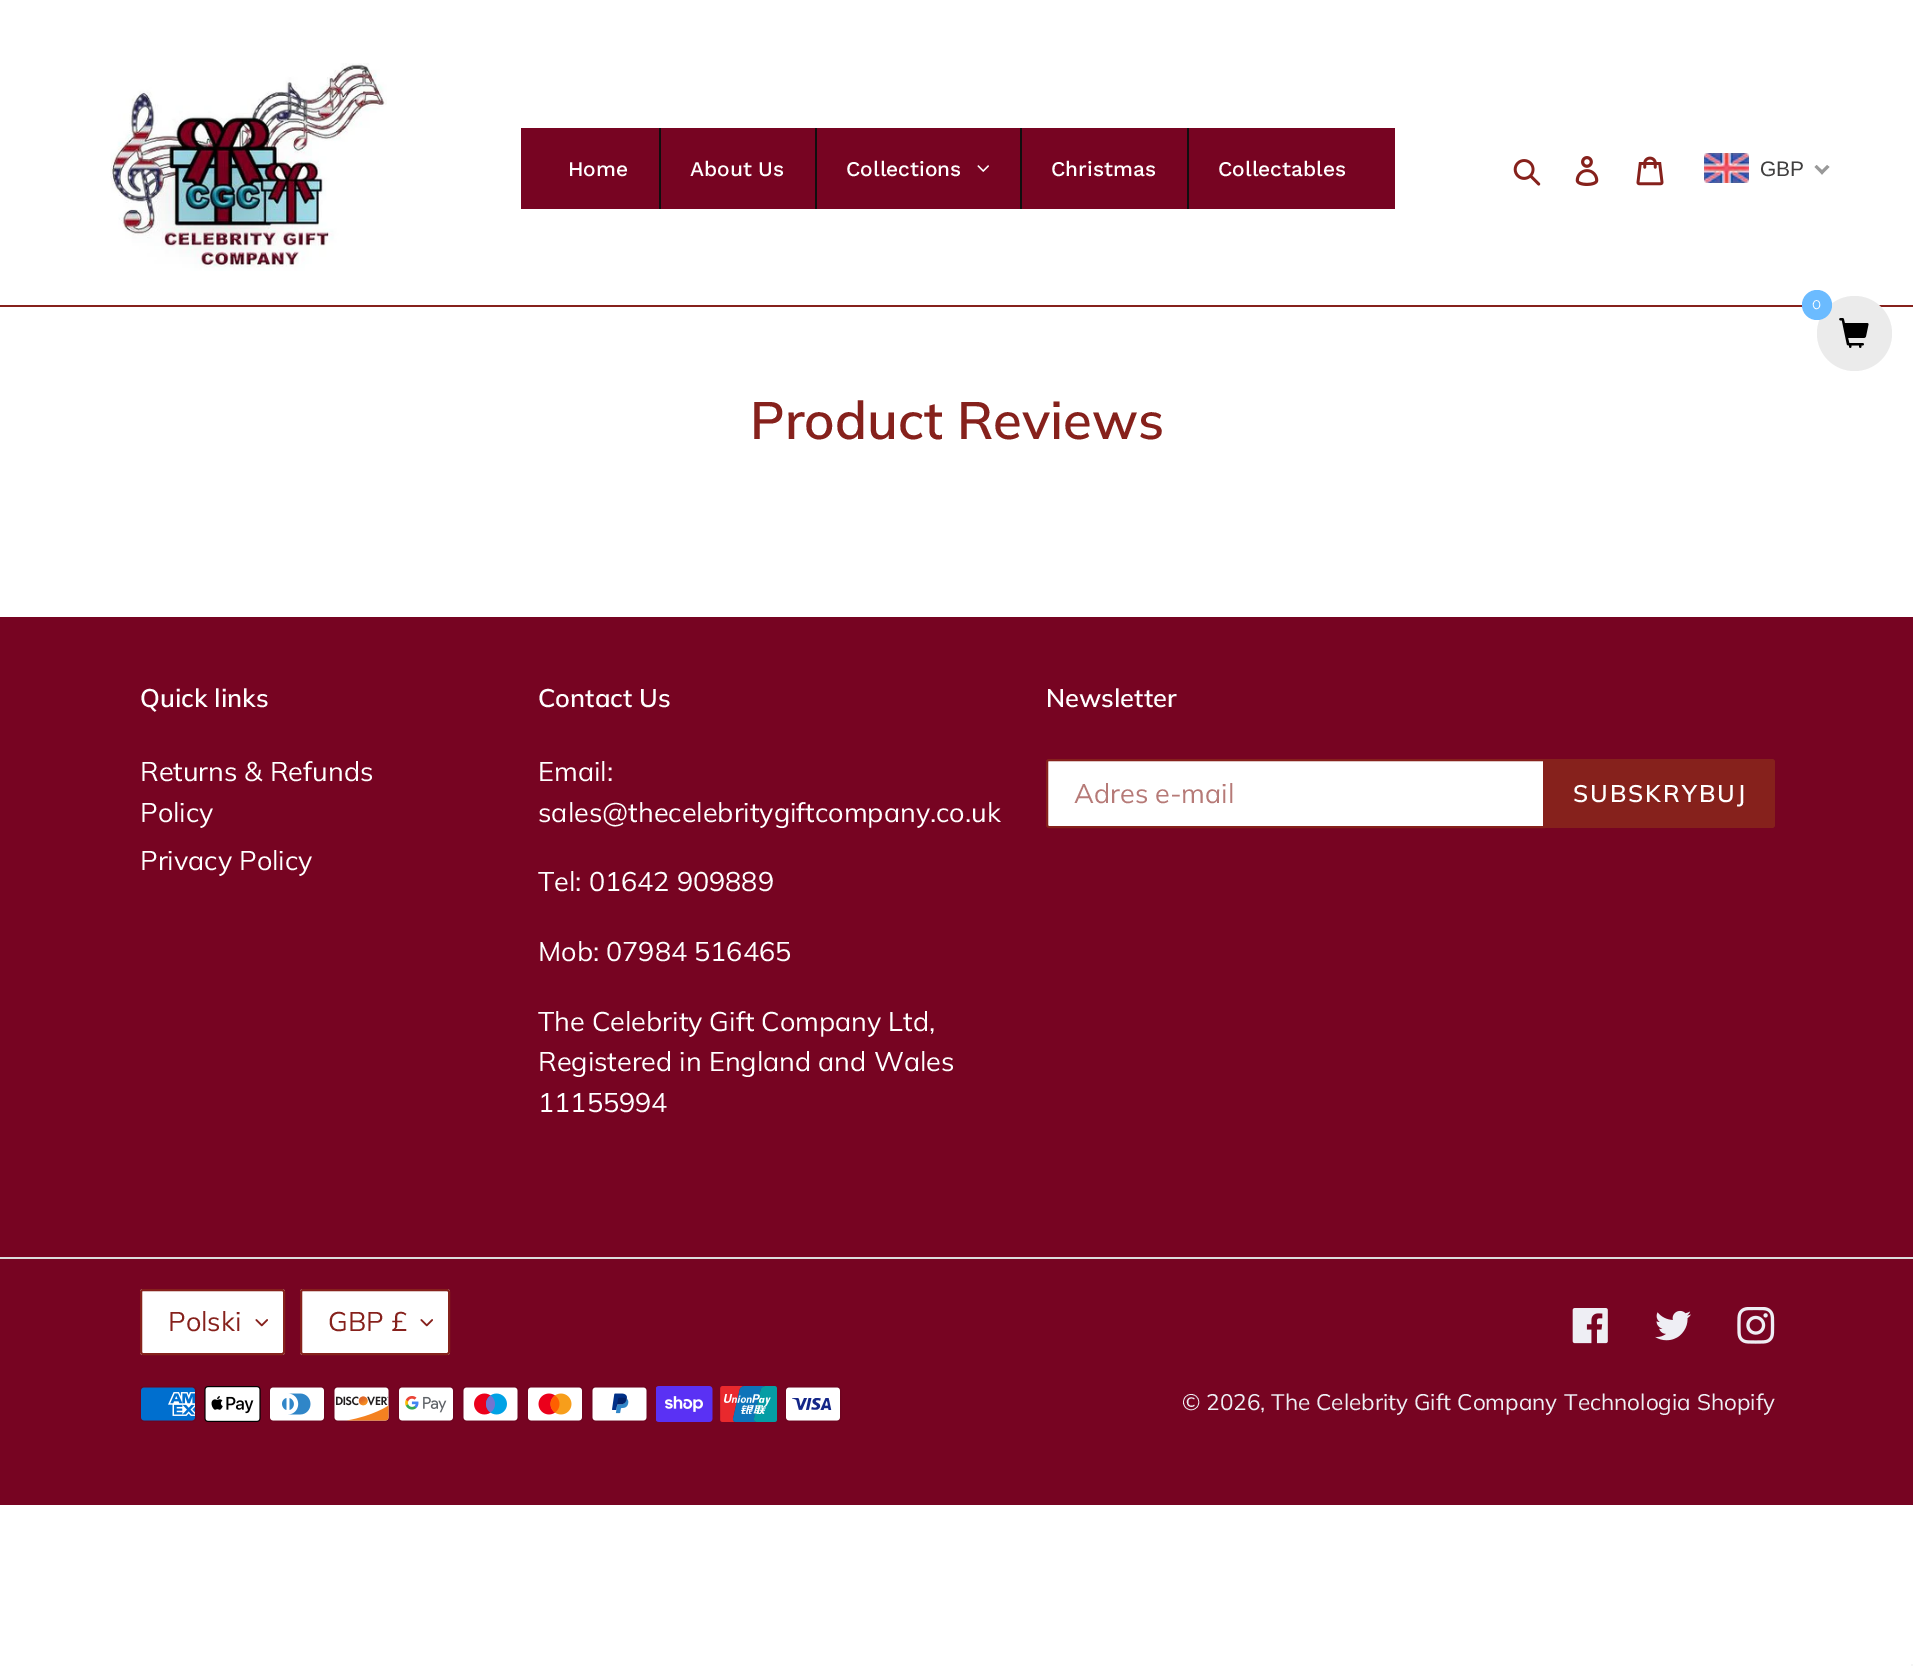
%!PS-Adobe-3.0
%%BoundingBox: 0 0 1913 1666
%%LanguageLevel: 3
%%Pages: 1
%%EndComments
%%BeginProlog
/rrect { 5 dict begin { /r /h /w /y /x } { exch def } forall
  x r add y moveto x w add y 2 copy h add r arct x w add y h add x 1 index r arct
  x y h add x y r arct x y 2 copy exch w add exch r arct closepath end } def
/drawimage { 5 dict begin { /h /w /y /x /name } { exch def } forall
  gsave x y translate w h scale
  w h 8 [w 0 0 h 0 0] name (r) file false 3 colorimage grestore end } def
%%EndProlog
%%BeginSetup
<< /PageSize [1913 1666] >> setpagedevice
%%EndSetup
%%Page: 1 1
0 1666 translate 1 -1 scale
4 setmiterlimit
1 setgray
0 0 1913 1666 rectfill
0.525 0.129 0.11 setrgbcolor
0 305 1913 2 rectfill
(images/1.raw) 110 63 277 208 drawimage
0.467 0.016 0.133 setrgbcolor
521 128 874 81 rectfill
0.059 setgray
659 128 2 81 rectfill
815 128 2 81 rectfill
(images/2.raw) 977 165 12 7 drawimage
1020 128 2 81 rectfill
1187 128 2 81 rectfill
(images/3.raw) 1513 159 28 27 drawimage
(images/4.raw) 1575 156 24 30 drawimage
(images/5.raw) 1636 156 28 30 drawimage
(images/6.raw) 1704 153 45 30 drawimage
0.6 setgray
newpath 1827 165 moveto 1829.5 167 lineto 1822 174.5 lineto 1820 172 lineto closepath fill
newpath 1816.5 165 moveto 1824 172 lineto 1822 174.5 lineto 1814.5 167 lineto closepath fill
0.922 setgray
newpath 1854.5 333.5 37.5 0 360 arc closepath fill
0.42 0.733 1 setrgbcolor
newpath 1817 305 15 0 360 arc closepath fill
(images/7.raw) 1839 318 30 30 drawimage
0.467 0.016 0.133 setrgbcolor
0 617 1913 888 rectfill
1 setgray
newpath 1049 760 moveto 1544 760 lineto 1544 827 lineto 1049 827 lineto 1048 827 1047 826 1047 825 curveto 1047 762 lineto 1047 761 1048 760 1049 760 curveto closepath gsave fill grestore
0.525 0.129 0.11 setrgbcolor
2 setlinewidth
stroke
newpath 1545 759 moveto 1772 759 lineto 1773.5 759 1775 760.5 1775 762 curveto 1775 825 lineto 1775 826.5 1773.5 828 1772 828 curveto 1545 828 lineto closepath fill
0.863 setgray
0 1257 1913 2 rectfill
1 setgray
140 1289 145 66 3 rrect fill
(images/8.raw) 255 1319 13 8 drawimage
0.525 0.129 0.11 setrgbcolor
141 1290 143 64 2 rrect stroke
1 setgray
300 1289 150 66 3 rrect fill
(images/8.raw) 420 1319 13 8 drawimage
0.525 0.129 0.11 setrgbcolor
301 1290 148 64 2 rrect stroke
(images/9.raw) 1572 1308 36 36 drawimage
(images/10.raw) 1655 1310 36 31 drawimage
(images/11.raw) 1737 1307 38 37 drawimage
(images/12.raw) 140 1386 57 36 drawimage
(images/13.raw) 204 1386 57 36 drawimage
(images/14.raw) 269 1386 57 36 drawimage
(images/15.raw) 333 1386 57 36 drawimage
(images/16.raw) 398 1386 57 36 drawimage
(images/17.raw) 462 1386 57 36 drawimage
(images/18.raw) 527 1386 57 36 drawimage
(images/19.raw) 591 1386 57 36 drawimage
(images/20.raw) 656 1386 57 36 drawimage
(images/21.raw) 720 1386 57 36 drawimage
(images/22.raw) 785 1386 57 36 drawimage
0.961 setgray
1911 1664 2 2 rectfill
/WorkSans-Medium [21 0 0 -21 0 0] selectfont
1 setgray
568 176 moveto (Home) show
690 176 moveto (About Us) show
846 176 moveto (Collections) show
1051 176 moveto (Christmas) show
1218 176 moveto (Collectables) show
/LiberationSans-Regular [21 0 0 -21 0 0] selectfont
0.251 0.247 0.247 setrgbcolor
1760 176 moveto (GBP) show
/Raleway-Thin [15 0 0 -15 0 0] selectfont
1 setgray
1812 309 moveto (0) show
/Muli-SemiBold [52.5 0 0 -52.5 0 0] selectfont
0.525 0.129 0.11 setrgbcolor
750 439 moveto (Product Reviews) show
/Muli-SemiBold [25.5 0 0 -25.5 0 0] selectfont
1 setgray
140 707 moveto (Quick links) show
/Muli-Regular [27 0 0 -27 0 0] selectfont
140 781 moveto (Returns & Refunds) show
140 822 moveto (Policy) show
140 870 moveto (Privacy Policy) show
/Muli-SemiBold [25.5 0 0 -25.5 0 0] selectfont
538 707 moveto (Contact Us) show
/Muli-Regular [27 0 0 -27 0 0] selectfont
538 781 moveto (Email:) show
538 822 moveto (sales@thecelebritygiftcompany.co.uk) show
538 891 moveto (Tel: 01642 909889) show
538 961 moveto (Mob: 07984 516465) show
538 1031 moveto (The Celebrity Gift Company Ltd,) show
538 1071 moveto (Registered in England and Wales) show
538 1112 moveto (11155994) show
/Muli-SemiBold [25.5 0 0 -25.5 0 0] selectfont
1046 707 moveto (Newsletter) show
/Muli-Regular [27 0 0 -27 0 0] selectfont
0.714 0.478 0.467 setrgbcolor
1074 803 moveto (Adres e-mail) show
/Muli-SemiBold [24 0 0 -24 0 0] selectfont
1 setgray
1573 802 moveto 2 0 (SUBSKRYBUJ) ashow
/Muli-Regular [27 0 0 -27 0 0] selectfont
0.525 0.129 0.11 setrgbcolor
168 1331 moveto (Polski) show
328 1331 moveto (GBP £) show
/Muli-Regular [22.5 0 0 -22.5 0 0] selectfont
0.933 0.933 0.957 setrgbcolor
1182 1410 moveto (© 2026, The Celebrity Gift Company) show
1564 1410 moveto (Technologia Shopify) show
showpage
%%EOF
